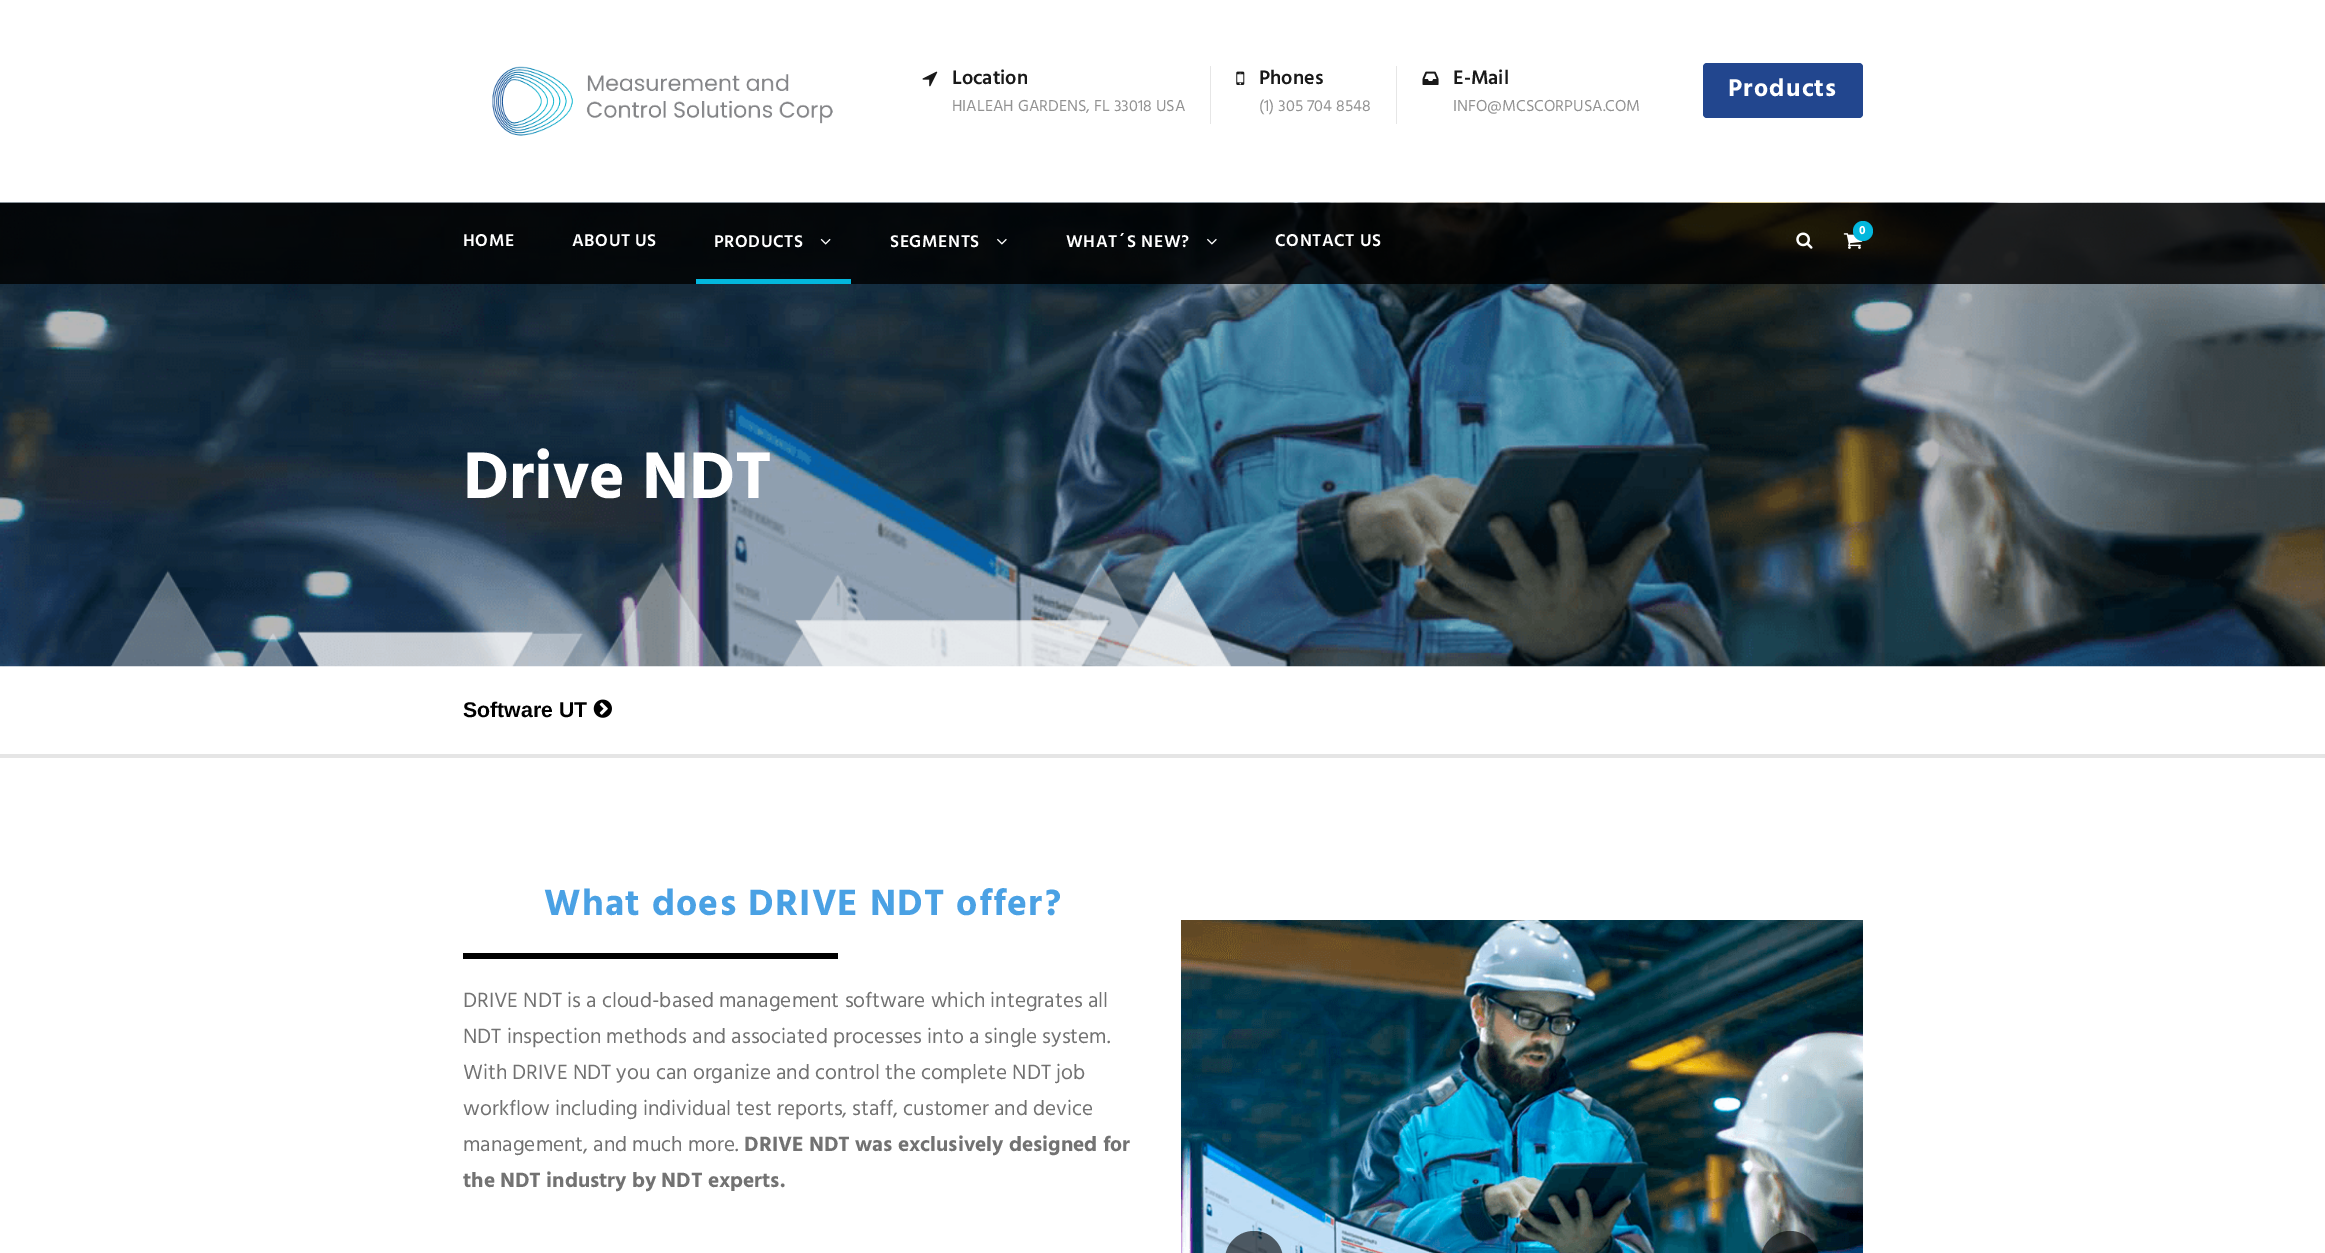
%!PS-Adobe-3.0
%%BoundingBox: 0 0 2325 1253
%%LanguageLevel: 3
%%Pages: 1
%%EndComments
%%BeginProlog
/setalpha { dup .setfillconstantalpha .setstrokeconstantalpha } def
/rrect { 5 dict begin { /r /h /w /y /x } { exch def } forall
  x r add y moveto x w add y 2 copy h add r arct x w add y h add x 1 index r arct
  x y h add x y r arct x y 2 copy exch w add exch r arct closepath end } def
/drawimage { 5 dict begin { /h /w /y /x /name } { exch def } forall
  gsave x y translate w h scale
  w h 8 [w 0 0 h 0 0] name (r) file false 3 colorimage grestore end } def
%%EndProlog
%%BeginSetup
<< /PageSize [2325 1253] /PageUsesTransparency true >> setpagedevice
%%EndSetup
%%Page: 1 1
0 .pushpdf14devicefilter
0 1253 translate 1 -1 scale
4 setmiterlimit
1 setgray
0 0 2325 1253 rectfill
(images/1.raw) 492 66 341 70 drawimage
(images/2.raw) 922 71 16 16 drawimage
0.902 setgray
1210 66 1 58 rectfill
(images/3.raw) 1236 71 9 14 drawimage
1396 66 1 58 rectfill
(images/4.raw) 1422 71 17 14 drawimage
0.133 0.275 0.557 setrgbcolor
1703 63 160 55 4 rrect fill
(images/10.raw) 0 202 2325 465 drawimage
0.82 setalpha
0 setgray
0 203 2325 81 rectfill
1 setalpha
(images/5.raw) 1843 233 20 16 drawimage
0.012 0.718 0.867 setrgbcolor
newpath 1863 231 10 0 360 arc closepath fill
(images/6.raw) 1796 232 17 17 drawimage
(images/7.raw) 820 238 11 7 drawimage
(images/8.raw) 997 238 10 7 drawimage
(images/9.raw) 1207 238 10 7 drawimage
696 279 155 5 rectfill
(images/11.raw) 593 699 19 19 drawimage
0.898 setgray
0 754 2325 4 rectfill
0 setgray
463 953 375 6 rectfill
(images/12.raw) 1181 920 682 333 drawimage
0.6 setalpha
1225 1231 58 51 29 rrect fill
1761 1231 58 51 29 rrect fill
/Hind-SemiBold [20 0 0 -20 0 0] selectfont
1 setalpha
0.098 setgray
952 84 moveto (Location) show
/Hind-Regular [16.25 0 0 -16.25 0 0] selectfont
0.573 setgray
952 111 moveto (HIALEAH GARDENS, FL 33018 USA) show
/Hind-SemiBold [20 0 0 -20 0 0] selectfont
0.098 setgray
1259 84 moveto (Phones) show
/Hind-Regular [16.25 0 0 -16.25 0 0] selectfont
0.573 setgray
1259 111 moveto (\(1\) 305 704 8548) show
/Hind-SemiBold [20 0 0 -20 0 0] selectfont
0.098 setgray
1453 84 moveto (E-Mail) show
/Hind-Regular [16.25 0 0 -16.25 0 0] selectfont
0.573 setgray
1453 111 moveto (INFO@MCSCORPUSA.COM) show
/Hind-Bold [25 0 0 -25 0 0] selectfont
1 setgray
1728 96 moveto 1.25 0 (Products) ashow
/Hind-Bold [12 0 0 -12 0 0] selectfont
1859 234 moveto (0) show
/Hind-SemiBold [17.5 0 0 -17.5 0 0] selectfont
463 246 moveto 0.6 0 (HOME) ashow
572 246 moveto 0.6 0 (ABOUT US) ashow
714 247 moveto 0.6 0 (PRODUCTS) ashow
890 247 moveto 0.6 0 (SEGMENTS) ashow
1066 247 moveto 0.6 0 (WHAT´S NEW?) ashow
1275 246 moveto 0.6 0 (CONTACT US) ashow
/Hind-Bold [67.5 0 0 -67.5 0 0] selectfont
463 498 moveto (Drive NDT) show
/LiberationSans-Bold [21.25 0 0 -21.25 0 0] selectfont
0 setgray
463 717 moveto (Software UT) show
/Hind-Bold [37.5 0 0 -37.5 0 0] selectfont
0.29 0.631 0.894 setrgbcolor
544 915 moveto 1.25 0 (What does DRIVE NDT offer?) ashow
/Hind-Regular [21.25 0 0 -21.25 0 0] selectfont
0.447 setgray
463 1007 moveto (DRIVE NDT is a cloud-based management software which integrates all) show
463 1043 moveto (NDT inspection methods and associated processes into a single system.) show
463 1079 moveto (With DRIVE NDT you can organize and control the complete NDT job) show
463 1115 moveto (workflow including individual test reports, staff, customer and device) show
463 1151 moveto (management, and much more.) show
/Hind-Bold [21.25 0 0 -21.25 0 0] selectfont
744 1151 moveto (DRIVE NDT was exclusively designed for) show
463 1187 moveto (the NDT industry by NDT experts.) show
.poppdf14devicefilter showpage
%%EOF
